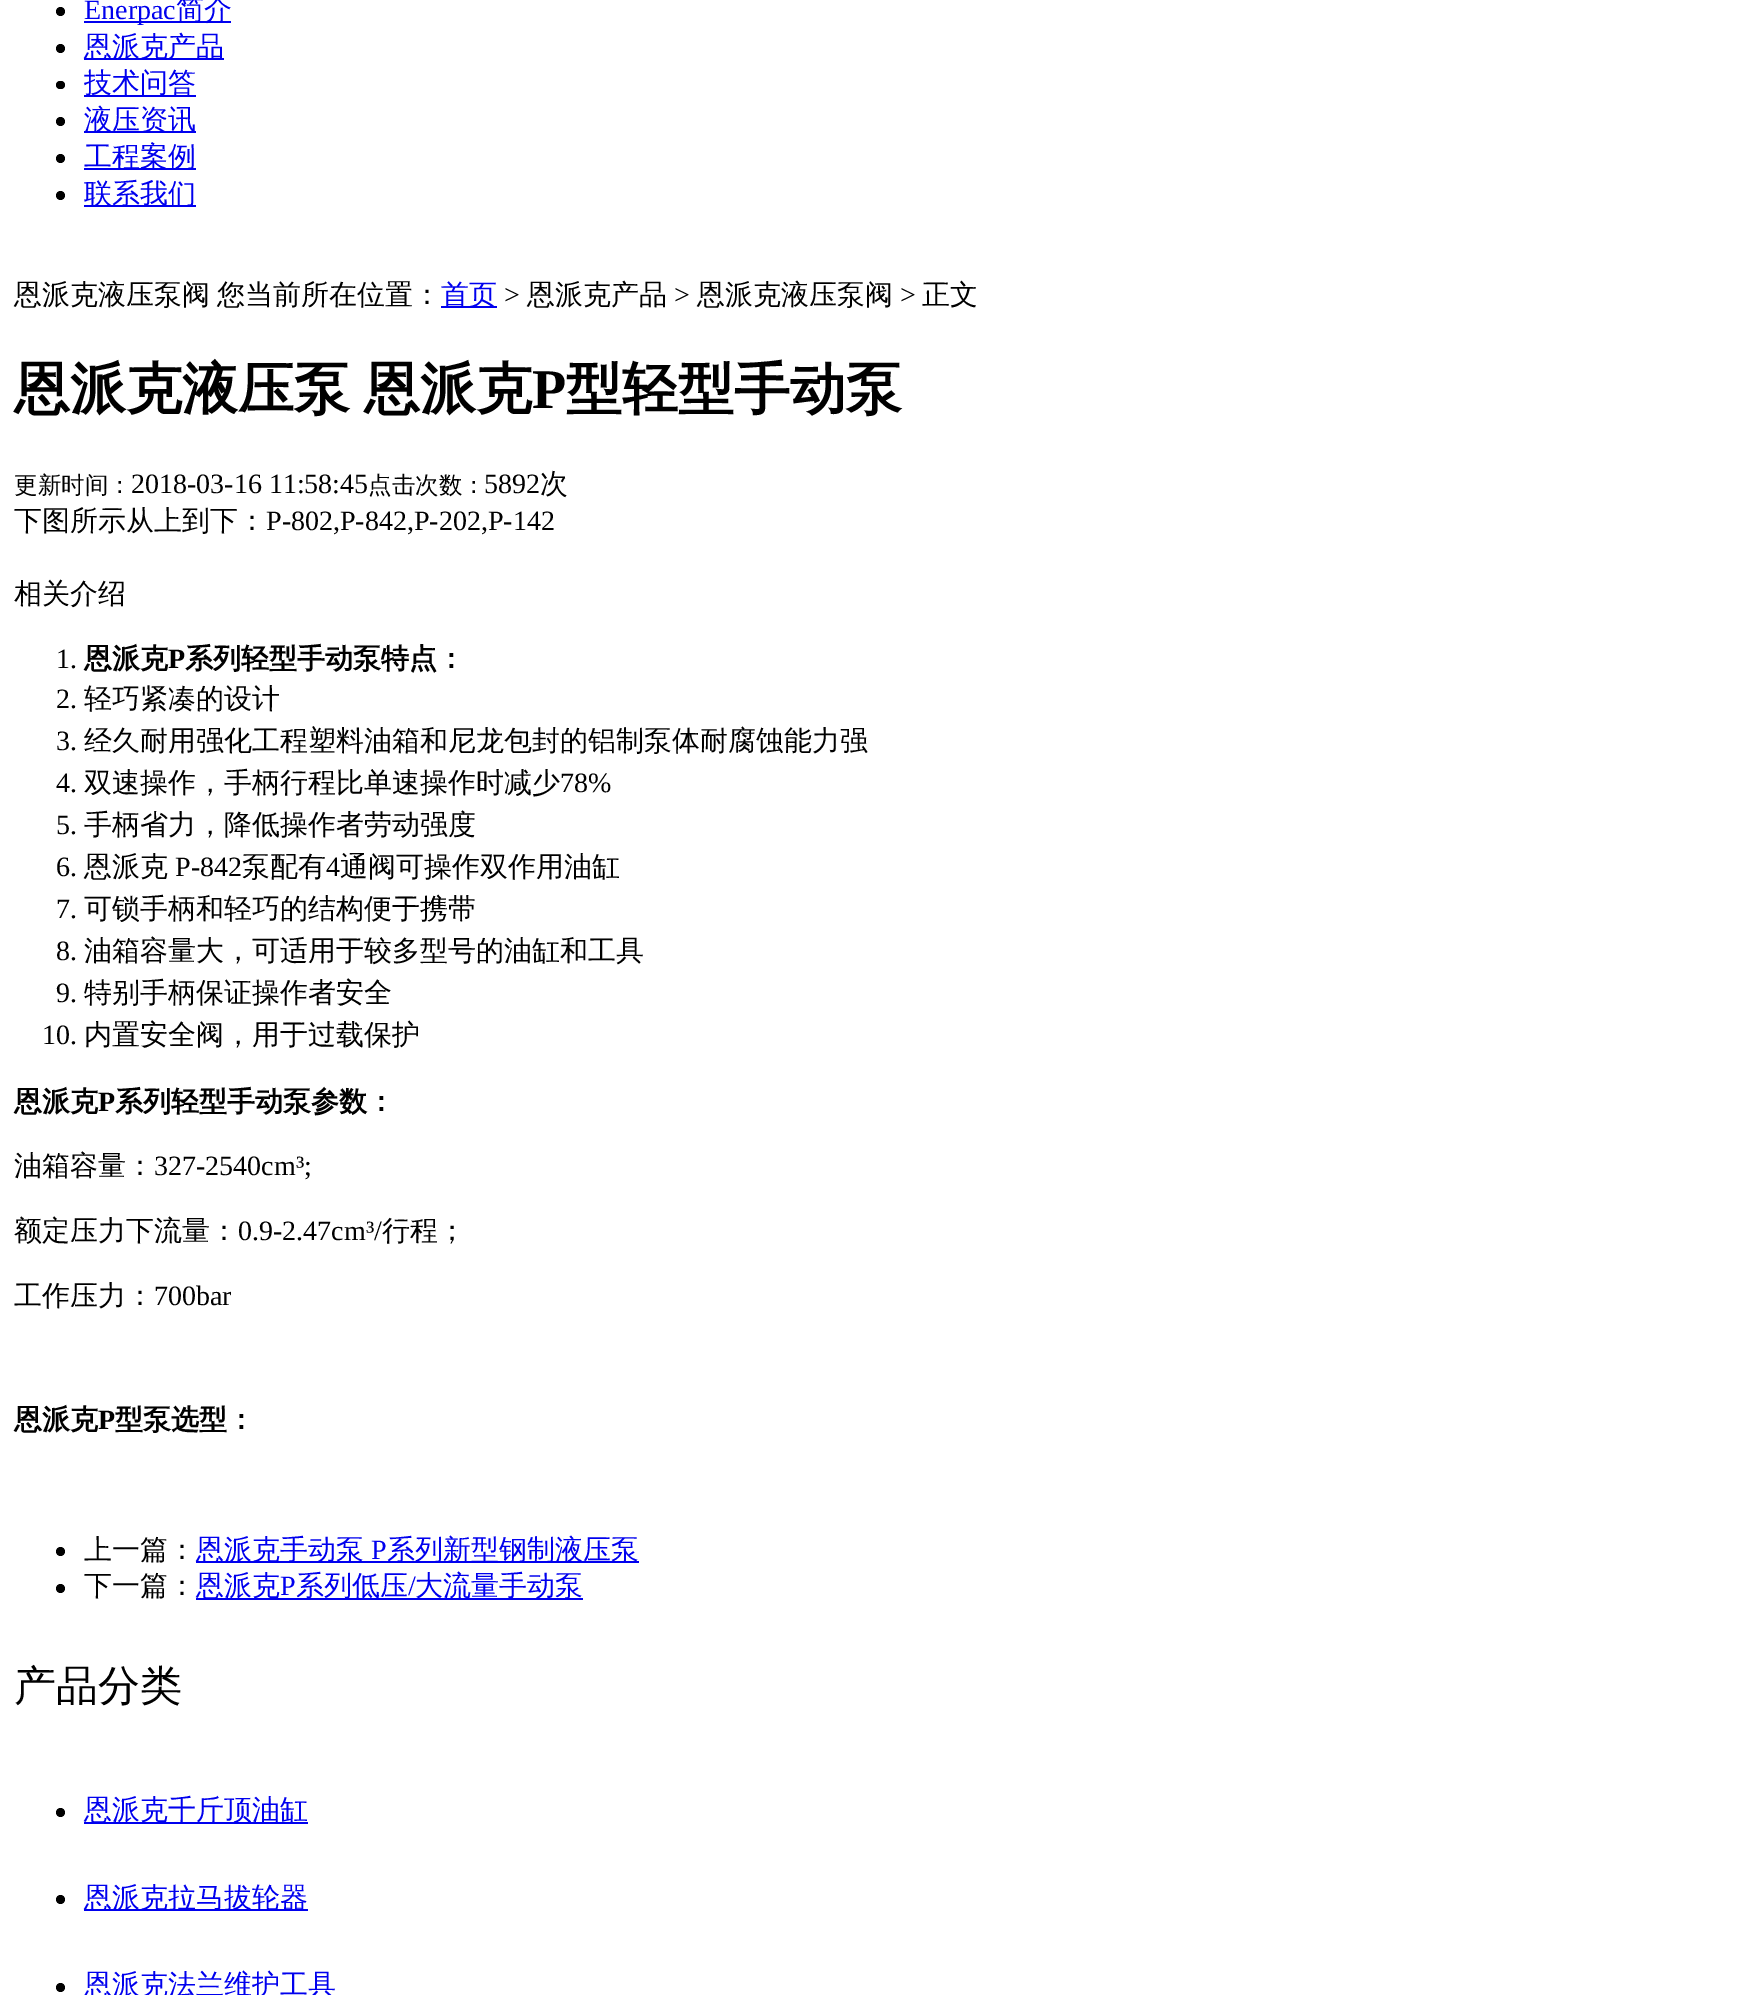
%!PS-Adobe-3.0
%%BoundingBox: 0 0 1737 1995
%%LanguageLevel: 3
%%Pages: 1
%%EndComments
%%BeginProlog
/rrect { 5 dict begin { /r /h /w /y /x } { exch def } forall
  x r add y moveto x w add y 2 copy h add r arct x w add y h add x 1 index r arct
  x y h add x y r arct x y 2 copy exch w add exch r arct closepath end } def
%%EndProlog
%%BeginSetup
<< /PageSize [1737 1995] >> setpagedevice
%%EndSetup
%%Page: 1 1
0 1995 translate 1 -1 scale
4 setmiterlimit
1 setgray
0 0 1737 1995 rectfill
0 setgray
newpath 60.5 11.5 4.5 0 360 arc closepath fill
0 0 0.933 setrgbcolor
84 21 147 2 rectfill
0 setgray
newpath 60.5 48.5 4.5 0 360 arc closepath fill
0 0 0.933 setrgbcolor
84 58 140 2 rectfill
0 setgray
56 81 9 8 4 rrect fill
0 0 0.933 setrgbcolor
84 95 112 2 rectfill
0 setgray
newpath 60.5 121.5 4.5 0 360 arc closepath fill
0 0 0.933 setrgbcolor
84 131 112 2 rectfill
0 setgray
newpath 60.5 158.5 4.5 0 360 arc closepath fill
0 0 0.933 setrgbcolor
84 168 112 2 rectfill
0 setgray
newpath 60.5 195.5 4.5 0 360 arc closepath fill
0 0 0.933 setrgbcolor
84 205 112 2 rectfill
441 306 56 2 rectfill
0 setgray
newpath 60.5 1551.5 4.5 0 360 arc closepath fill
0 0 0.933 setrgbcolor
196 1561 443 2 rectfill
0 setgray
newpath 60.5 1588.5 4.5 0 360 arc closepath fill
0 0 0.933 setrgbcolor
196 1598 387 2 rectfill
0 setgray
newpath 60.5 1812.5 4.5 0 360 arc closepath fill
0 0 0.933 setrgbcolor
84 1822 224 2 rectfill
0 setgray
newpath 60.5 1899.5 4.5 0 360 arc closepath fill
0 0 0.933 setrgbcolor
84 1909 224 2 rectfill
0 setgray
newpath 60.5 1987.5 4.5 0 360 arc closepath fill
/LiberationSerif-Regular [28 0 0 -28 0 0] selectfont
0 0 0.933 setrgbcolor
84 19 moveto (Enerpac) show
/WenQuanYiZenHei-Medium [28 0 0 -28 0 0] selectfont
176 19 moveto (简介) show
84 56 moveto (恩派克产品) show
84 92 moveto (技术问答) show
84 129 moveto (液压资讯) show
84 166 moveto (工程案例) show
84 203 moveto (联系我们) show
0 setgray
14 304 moveto (恩派克液压泵阀) show
217 304 moveto (您当前所在位置：) show
0 0 0.933 setrgbcolor
441 304 moveto (首页) show
/LiberationSerif-Regular [28 0 0 -28 0 0] selectfont
0 setgray
504 304 moveto (>) show
/WenQuanYiZenHei-Medium [28 0 0 -28 0 0] selectfont
527 304 moveto (恩派克产品) show
/LiberationSerif-Regular [28 0 0 -28 0 0] selectfont
674 304 moveto (>) show
/WenQuanYiZenHei-Medium [28 0 0 -28 0 0] selectfont
697 304 moveto (恩派克液压泵阀) show
/LiberationSerif-Regular [28 0 0 -28 0 0] selectfont
900 304 moveto (>) show
/WenQuanYiZenHei-Medium [28 0 0 -28 0 0] selectfont
922 304 moveto (正文) show
/WenQuanYiZenHei-Bold [56 0 0 -56 0 0] selectfont
14 408 moveto -3 0 32 (恩派克液压泵 恩派克) widthshow
/LiberationSerif-Bold [56 0 0 -56 0 0] selectfont
532 408 moveto (P) show
/WenQuanYiZenHei-Bold [56 0 0 -56 0 0] selectfont
566 408 moveto (型轻型手动泵) show
/WenQuanYiZenHei-Medium [23.5 0 0 -23.5 0 0] selectfont
14 493 moveto (更新时间：) show
/LiberationSerif-Regular [28 0 0 -28 0 0] selectfont
131 493 moveto (2018-03-16 11:58:45) show
/WenQuanYiZenHei-Medium [23.5 0 0 -23.5 0 0] selectfont
368 493 moveto (点击次数：) show
/LiberationSerif-Regular [28 0 0 -28 0 0] selectfont
484 493 moveto (5892) show
/WenQuanYiZenHei-Medium [28 0 0 -28 0 0] selectfont
540 493 moveto (次) show
14 530 moveto (下图所示从上到下：) show
/LiberationSerif-Regular [28 0 0 -28 0 0] selectfont
266 530 moveto (P-802,P-842,P-202,P-142) show
/WenQuanYiZenHei-Medium [28 0 0 -28 0 0] selectfont
14 603 moveto (相关介绍) show
/LiberationSerif-Regular [28 0 0 -28 0 0] selectfont
56 668 moveto (1.) show
/WenQuanYiZenHei-Bold [28 0 0 -28 0 0] selectfont
84 668 moveto (恩派克) show
/LiberationSerif-Bold [28 0 0 -28 0 0] selectfont
168 668 moveto (P) show
/WenQuanYiZenHei-Bold [28 0 0 -28 0 0] selectfont
185 668 moveto (系列轻型手动泵特点：) show
/LiberationSerif-Regular [28 0 0 -28 0 0] selectfont
56 708 moveto (2.) show
/WenQuanYiZenHei-Medium [28 0 0 -28 0 0] selectfont
84 708 moveto (轻巧紧凑的设计) show
/LiberationSerif-Regular [28 0 0 -28 0 0] selectfont
56 750 moveto (3.) show
/WenQuanYiZenHei-Medium [28 0 0 -28 0 0] selectfont
84 750 moveto (经久耐用强化工程塑料油箱和尼龙包封的铝制泵体耐腐蚀能力强) show
/LiberationSerif-Regular [28 0 0 -28 0 0] selectfont
56 792 moveto (4.) show
/WenQuanYiZenHei-Medium [28 0 0 -28 0 0] selectfont
84 792 moveto (双速操作，手柄行程比单速操作时减少) show
/LiberationSerif-Regular [28 0 0 -28 0 0] selectfont
560 792 moveto (78%) show
56 834 moveto (5.) show
/WenQuanYiZenHei-Medium [28 0 0 -28 0 0] selectfont
84 834 moveto (手柄省力，降低操作者劳动强度) show
/LiberationSerif-Regular [28 0 0 -28 0 0] selectfont
56 876 moveto (6.) show
/WenQuanYiZenHei-Medium [28 0 0 -28 0 0] selectfont
84 876 moveto (恩派克) show
/LiberationSerif-Regular [28 0 0 -28 0 0] selectfont
175 876 moveto (P-842) show
/WenQuanYiZenHei-Medium [28 0 0 -28 0 0] selectfont
242 876 moveto (泵配有) show
/LiberationSerif-Regular [28 0 0 -28 0 0] selectfont
326 876 moveto (4) show
/WenQuanYiZenHei-Medium [28 0 0 -28 0 0] selectfont
340 876 moveto (通阀可操作双作用油缸) show
/LiberationSerif-Regular [28 0 0 -28 0 0] selectfont
56 918 moveto (7.) show
/WenQuanYiZenHei-Medium [28 0 0 -28 0 0] selectfont
84 918 moveto (可锁手柄和轻巧的结构便于携带) show
/LiberationSerif-Regular [28 0 0 -28 0 0] selectfont
56 960 moveto (8.) show
/WenQuanYiZenHei-Medium [28 0 0 -28 0 0] selectfont
84 960 moveto (油箱容量大，可适用于较多型号的油缸和工具) show
/LiberationSerif-Regular [28 0 0 -28 0 0] selectfont
56 1002 moveto (9.) show
/WenQuanYiZenHei-Medium [28 0 0 -28 0 0] selectfont
84 1002 moveto (特别手柄保证操作者安全) show
/LiberationSerif-Regular [28 0 0 -28 0 0] selectfont
42 1044 moveto (10.) show
/WenQuanYiZenHei-Medium [28 0 0 -28 0 0] selectfont
84 1044 moveto (内置安全阀，用于过载保护) show
/WenQuanYiZenHei-Bold [28 0 0 -28 0 0] selectfont
14 1111 moveto (恩派克) show
/LiberationSerif-Bold [28 0 0 -28 0 0] selectfont
98 1111 moveto (P) show
/WenQuanYiZenHei-Bold [28 0 0 -28 0 0] selectfont
115 1111 moveto (系列轻型手动泵参数：) show
/WenQuanYiZenHei-Medium [28 0 0 -28 0 0] selectfont
14 1175 moveto (油箱容量：) show
/LiberationSerif-Regular [28 0 0 -28 0 0] selectfont
154 1175 moveto (327-2540cm³;) show
/WenQuanYiZenHei-Medium [28 0 0 -28 0 0] selectfont
14 1240 moveto (额定压力下流量：) show
/LiberationSerif-Regular [28 0 0 -28 0 0] selectfont
238 1240 moveto (0.9-2.47cm³/) show
/WenQuanYiZenHei-Medium [28 0 0 -28 0 0] selectfont
382 1240 moveto (行程；) show
14 1305 moveto (工作压力：) show
/LiberationSerif-Regular [28 0 0 -28 0 0] selectfont
154 1305 moveto (700bar) show
/WenQuanYiZenHei-Bold [28 0 0 -28 0 0] selectfont
14 1429 moveto (恩派克) show
/LiberationSerif-Bold [28 0 0 -28 0 0] selectfont
98 1429 moveto (P) show
/WenQuanYiZenHei-Bold [28 0 0 -28 0 0] selectfont
115 1429 moveto (型泵选型：) show
/WenQuanYiZenHei-Medium [28 0 0 -28 0 0] selectfont
84 1559 moveto (上一篇：) show
0 0 0.933 setrgbcolor
196 1559 moveto (恩派克手动泵) show
/LiberationSerif-Regular [28 0 0 -28 0 0] selectfont
371 1559 moveto (P) show
/WenQuanYiZenHei-Medium [28 0 0 -28 0 0] selectfont
387 1559 moveto (系列新型钢制液压泵) show
0 setgray
84 1595 moveto (下一篇：) show
0 0 0.933 setrgbcolor
196 1595 moveto (恩派克) show
/LiberationSerif-Regular [28 0 0 -28 0 0] selectfont
280 1595 moveto (P) show
/WenQuanYiZenHei-Medium [28 0 0 -28 0 0] selectfont
296 1595 moveto (系列低压) show
/LiberationSerif-Regular [28 0 0 -28 0 0] selectfont
408 1595 moveto (/) show
/WenQuanYiZenHei-Medium [28 0 0 -28 0 0] selectfont
415 1595 moveto (大流量手动泵) show
/WenQuanYiZenHei-Medium [42 0 0 -42 0 0] selectfont
0 setgray
14 1700 moveto (产品分类) show
/WenQuanYiZenHei-Medium [28 0 0 -28 0 0] selectfont
0 0 0.933 setrgbcolor
84 1819 moveto (恩派克千斤顶油缸) show
84 1907 moveto (恩派克拉马拔轮器) show
84 1994 moveto (恩派克法兰维护工具) show
showpage
%%EOF
